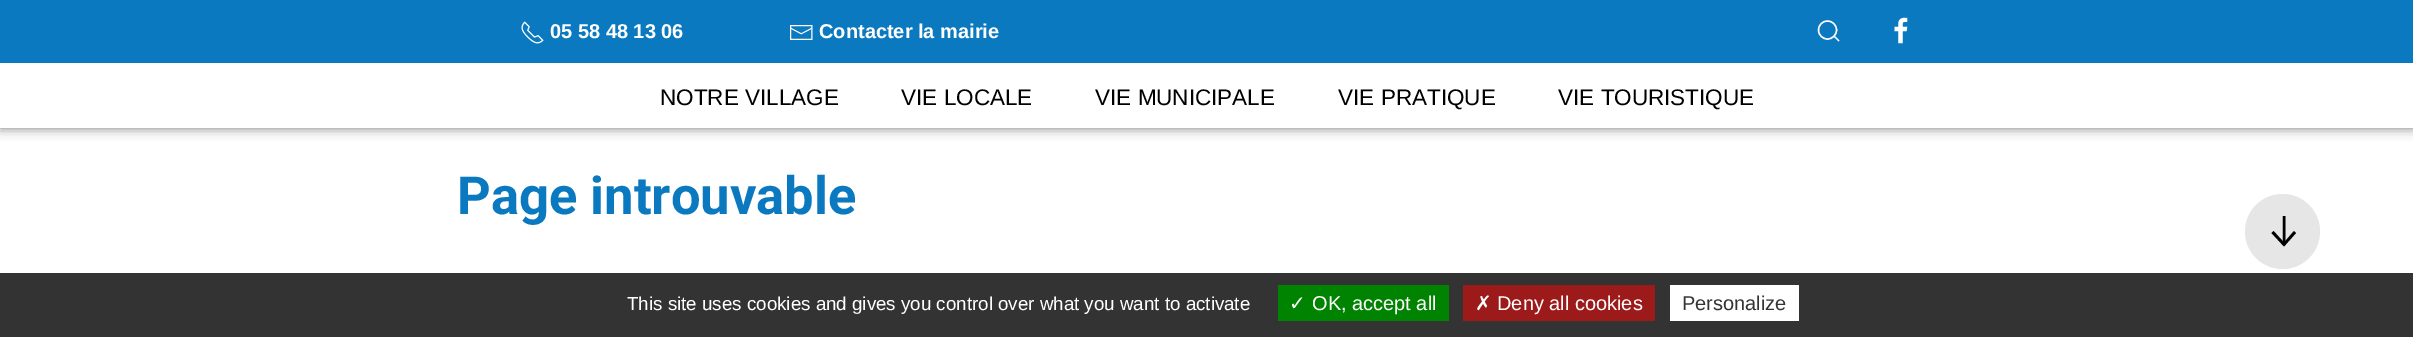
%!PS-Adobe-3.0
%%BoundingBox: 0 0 2413 337
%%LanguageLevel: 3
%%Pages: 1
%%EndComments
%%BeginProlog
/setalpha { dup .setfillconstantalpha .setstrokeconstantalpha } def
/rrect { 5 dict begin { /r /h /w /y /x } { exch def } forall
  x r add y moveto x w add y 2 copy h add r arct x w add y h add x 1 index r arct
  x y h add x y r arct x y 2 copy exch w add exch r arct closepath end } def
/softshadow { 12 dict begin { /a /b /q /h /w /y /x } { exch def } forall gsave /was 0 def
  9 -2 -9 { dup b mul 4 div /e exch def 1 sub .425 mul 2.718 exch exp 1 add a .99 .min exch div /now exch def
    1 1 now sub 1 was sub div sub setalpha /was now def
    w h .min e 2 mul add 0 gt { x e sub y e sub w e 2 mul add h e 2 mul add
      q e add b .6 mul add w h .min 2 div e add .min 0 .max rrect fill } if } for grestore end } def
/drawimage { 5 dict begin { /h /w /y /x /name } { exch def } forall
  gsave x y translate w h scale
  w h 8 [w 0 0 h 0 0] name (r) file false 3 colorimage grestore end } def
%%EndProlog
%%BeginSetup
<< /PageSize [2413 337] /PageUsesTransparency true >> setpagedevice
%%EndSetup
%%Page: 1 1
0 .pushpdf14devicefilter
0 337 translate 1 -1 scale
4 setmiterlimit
1 setgray
0 0 2413 337 rectfill
0.463 setgray
0 63 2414 65 0 6 1 softshadow
0.039 0.475 0.749 setrgbcolor
0 0 2413 63 rectfill
(images/1.raw) 521 21 23 23 drawimage
(images/2.raw) 790 25 23 15 drawimage
1 setgray
1.4 setlinewidth
newpath 1827.5 30 9 0 360 arc closepath stroke
newpath 1834 36 moveto 1839 41 lineto closepath stroke
(images/3.raw) 1894 17 14 27 drawimage
0 63 2413 65 rectfill
0.902 setgray
newpath 2282.5 231.5 37.5 0 360 arc closepath fill
0 setgray
newpath 2284 246.5 moveto 2271.5 233 lineto 2273.5 231 lineto 2284 242.5 lineto 2294 231 lineto 2296 233 lineto closepath fill
2.5 setlinewidth
newpath 2284 216 moveto 2284 244 lineto stroke
0.2 setgray
0 273 2413 64 rectfill
0 0.514 0 setrgbcolor
1278 285 171 36 rectfill
0.612 0.102 0.102 setrgbcolor
1463 285 192 36 rectfill
1 setgray
1670 285 129 36 rectfill
/LiberationSans-Bold [20 0 0 -20 0 0] selectfont
550 38 moveto (05 58 48 13 06) show
819 38 moveto (Contacter la mairie) show
/LiberationSans-Regular [22.5 0 0 -22.5 0 0] selectfont
0 setgray
660 105 moveto (NOTRE VILLAGE) show
901 105 moveto (VIE LOCALE) show
1095 105 moveto (VIE MUNICIPALE) show
1338 105 moveto (VIE PRATIQUE) show
1558 105 moveto (VIE TOURISTIQUE) show
/Roboto-Bold [52.5 0 0 -52.5 0 0] selectfont
0.039 0.475 0.749 setrgbcolor
457 214 moveto (Page introuvable) show
/LiberationSans-Regular [18.75 0 0 -18.75 0 0] selectfont
1 setgray
627 310 moveto (This site uses cookies and gives you control over what you want to activate) show
/DejaVuSans-Regular [20 0 0 -20 0 0] selectfont
1289 310 moveto (✓) show
/LiberationSans-Regular [20 0 0 -20 0 0] selectfont
1312 310 moveto (OK, accept all) show
/DejaVuSans-Regular [20 0 0 -20 0 0] selectfont
1475 310 moveto (✗) show
/LiberationSans-Regular [20 0 0 -20 0 0] selectfont
1497 310 moveto (Deny all cookies) show
0.2 setgray
1682 310 moveto (Personalize) show
.poppdf14devicefilter showpage
%%EOF
